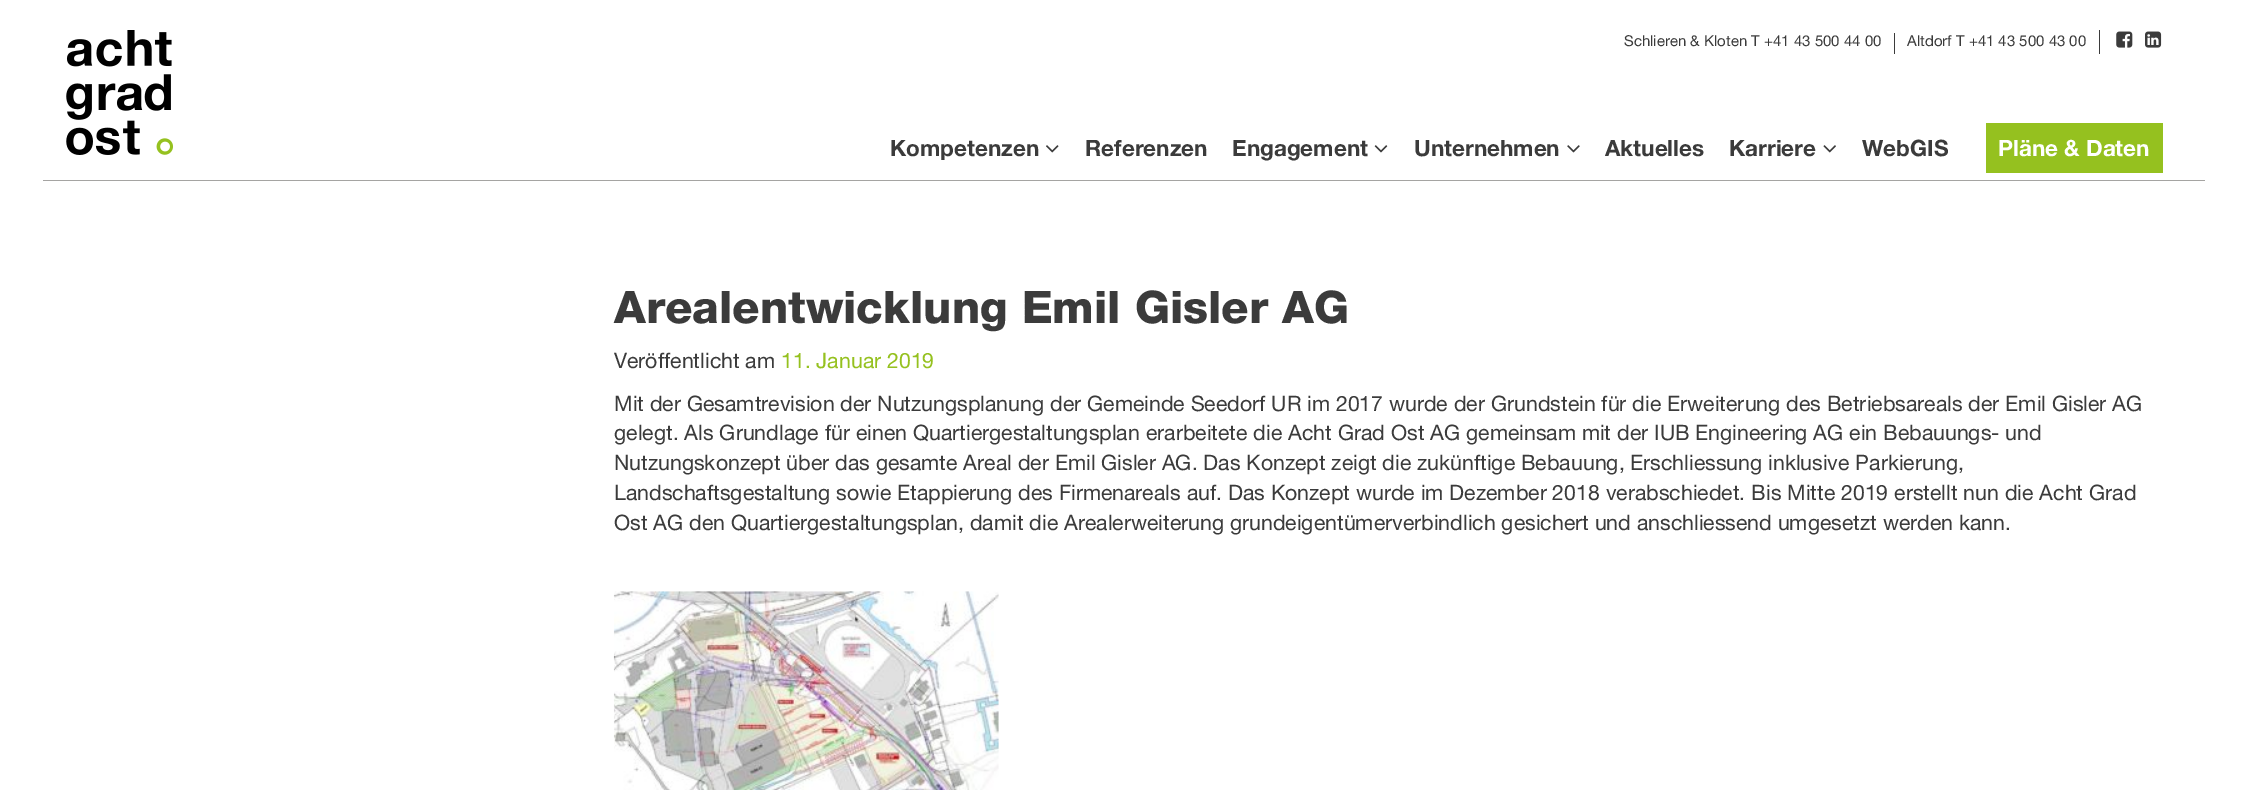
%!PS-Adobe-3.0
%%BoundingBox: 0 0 2247 790
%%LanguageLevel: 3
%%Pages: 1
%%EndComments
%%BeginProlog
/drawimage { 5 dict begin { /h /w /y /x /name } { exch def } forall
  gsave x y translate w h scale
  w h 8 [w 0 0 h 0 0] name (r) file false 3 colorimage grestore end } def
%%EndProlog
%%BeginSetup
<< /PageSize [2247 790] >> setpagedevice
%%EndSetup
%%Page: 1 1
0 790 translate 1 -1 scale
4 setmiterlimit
1 setgray
0 0 2247 790 rectfill
(images/1.raw) 66 30 107 125 drawimage
0.647 0.643 0.635 setrgbcolor
43 180 2162 1 rectfill
0.231 setgray
1894 33 1 21 rectfill
2099 30 1 24 rectfill
(images/2.raw) 2116 31 17 17 drawimage
(images/3.raw) 2145 31 17 17 drawimage
(images/4.raw) 1046 145 13 8 drawimage
(images/5.raw) 1374 145 14 8 drawimage
(images/6.raw) 1567 145 13 8 drawimage
(images/7.raw) 1823 145 13 8 drawimage
0.584 0.757 0.122 setrgbcolor
1986 123 177 50 rectfill
(images/8.raw) 613 591 386 199 drawimage
/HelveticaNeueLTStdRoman-Regular [15 0 0 -15 0 0] selectfont
0.231 setgray
1624 46 moveto (Schlieren & Kloten T +41 43 500 44 00) show
1907 46 moveto (Altdorf T +41 43 500 43 00) show
/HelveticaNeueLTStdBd-Regular [22.5 0 0 -22.5 0 0] selectfont
890 156 moveto (Kompetenzen) show
1085 156 moveto (Referenzen) show
1232 156 moveto (Engagement) show
1414 156 moveto (Unternehmen) show
1605 156 moveto (Aktuelles) show
1729 156 moveto (Karriere) show
1862 156 moveto (WebGIS) show
1 setgray
1998 156 moveto (Pläne & Daten) show
/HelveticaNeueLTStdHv-Regular [45 0 0 -45 0 0] selectfont
0.231 setgray
614 323 moveto (Arealentwicklung Emil Gisler AG) show
/HelveticaNeueLTStdRoman-Regular [21.25 0 0 -21.25 0 0] selectfont
614 368 moveto (Veröffentlicht am) show
0.584 0.757 0.122 setrgbcolor
781 368 moveto (11. Januar 2019) show
0.231 setgray
614 411 moveto (Mit der Gesamtrevision der Nutzungsplanung der Gemeinde Seedorf UR im 2017 wurde der Grundstein für die Erweiterung des Betriebsareals der Emil Gisler AG) show
614 440 moveto (gelegt. Als Grundlage für einen Quartiergestaltungsplan erarbeitete die Acht Grad Ost AG gemeinsam mit der IUB Engineering AG ein Bebauungs- und) show
614 470 moveto (Nutzungskonzept über das gesamte Areal der Emil Gisler AG. Das Konzept zeigt die zukünftige Bebauung, Erschliessung inklusive Parkierung,) show
614 500 moveto (Landschaftsgestaltung sowie Etappierung des Firmenareals auf. Das Konzept wurde im Dezember 2018 verabschiedet. Bis Mitte 2019 erstellt nun die Acht Grad) show
614 530 moveto (Ost AG den Quartiergestaltungsplan, damit die Arealerweiterung grundeigentümerverbindlich gesichert und anschliessend umgesetzt werden kann.) show
showpage
%%EOF
